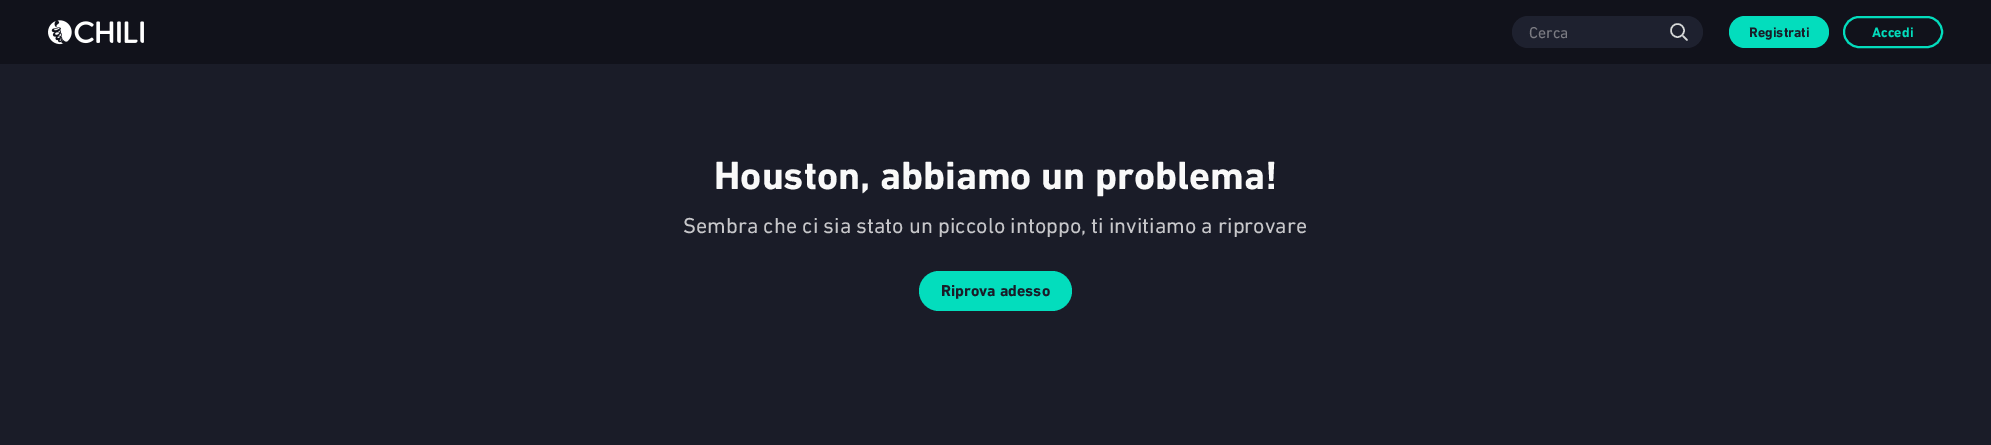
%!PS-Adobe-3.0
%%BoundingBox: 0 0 1991 445
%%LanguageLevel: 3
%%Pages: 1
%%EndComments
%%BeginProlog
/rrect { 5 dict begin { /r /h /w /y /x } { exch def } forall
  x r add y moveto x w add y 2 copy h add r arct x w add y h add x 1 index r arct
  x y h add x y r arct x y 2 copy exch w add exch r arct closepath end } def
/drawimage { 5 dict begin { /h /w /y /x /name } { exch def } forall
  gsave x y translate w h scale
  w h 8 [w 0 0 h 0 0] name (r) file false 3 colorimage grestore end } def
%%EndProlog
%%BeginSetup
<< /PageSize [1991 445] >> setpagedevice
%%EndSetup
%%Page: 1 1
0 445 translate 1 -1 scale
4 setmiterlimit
0.102 0.11 0.157 setrgbcolor
0 0 1991 445 rectfill
0.067 0.071 0.106 setrgbcolor
0 0 1991 64 rectfill
(images/1.raw) 48 20 96 25 drawimage
0.118 0.129 0.184 setrgbcolor
1512 16 191 32 16 rrect fill
0.847 0.855 0.855 setrgbcolor
1.5 setlinewidth
1 setlinecap
newpath 1687 40 moveto 1683 36 lineto stroke
0 setlinecap
newpath 1677.5 30.5 6.5 0 360 arc closepath stroke
0.012 0.867 0.741 setrgbcolor
1729 16 100 32 16 rrect fill
2 setlinewidth
1844 17 98 30 15 rrect stroke
919 271 153 40 20 rrect fill
/DINNext-Regular [16 0 0 -16 0 0] selectfont
0.49 0.49 0.518 setrgbcolor
1529 38 moveto (Cerca) show
/DINNext-Bold [14 0 0 -14 0 0] selectfont
0.102 0.11 0.157 setrgbcolor
1749 37 moveto (Registrati) show
0.012 0.867 0.741 setrgbcolor
1872 37 moveto (Accedi) show
/DINNext-Bold [40 0 0 -40 0 0] selectfont
0.976 setgray
714 189 moveto (Houston, abbiamo un problema!) show
/DINNext-Regular [22 0 0 -22 0 0] selectfont
0.78 0.78 0.792 setrgbcolor
683 233 moveto (Sembra che ci sia stato un piccolo intoppo, ti invitiamo a riprovare) show
/DINNext-Bold [16 0 0 -16 0 0] selectfont
0.102 0.11 0.157 setrgbcolor
941 296 moveto (Riprova adesso) show
showpage
%%EOF
